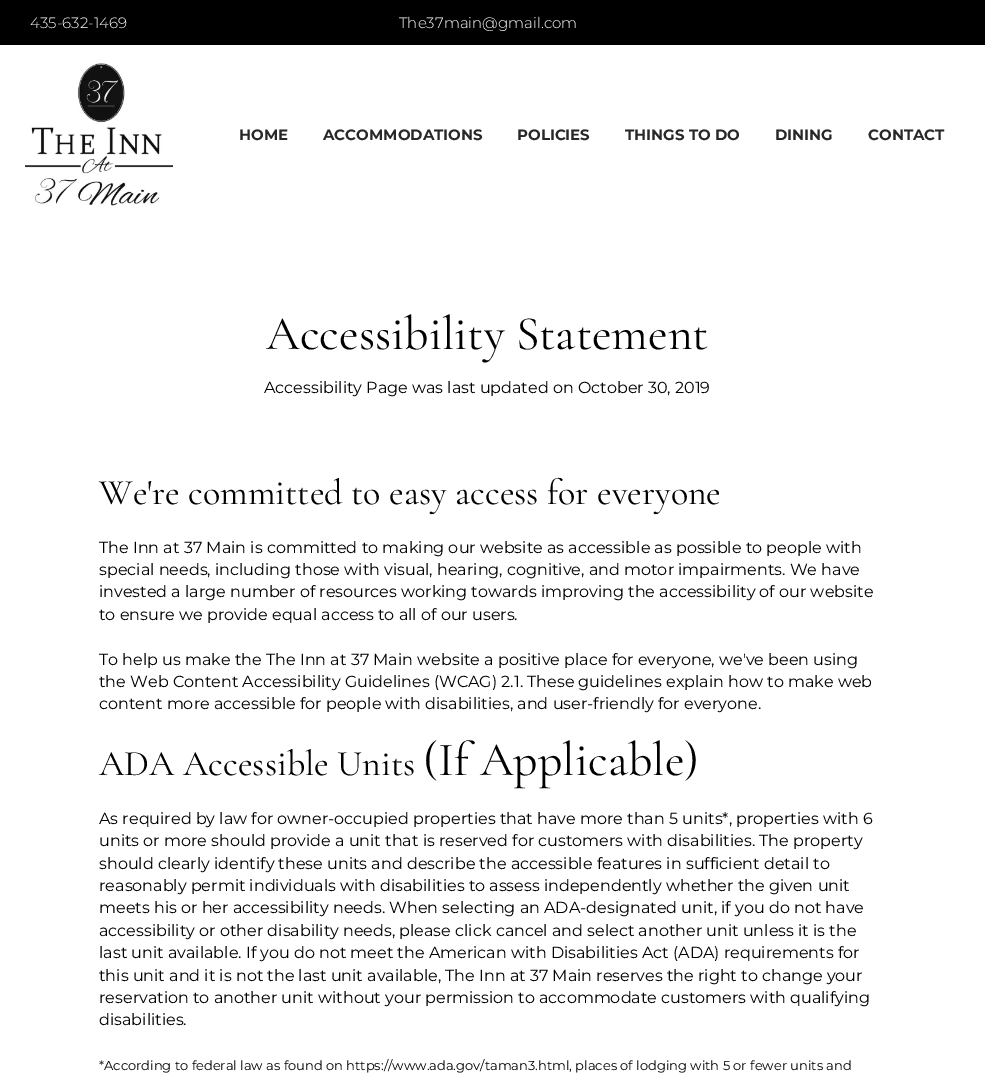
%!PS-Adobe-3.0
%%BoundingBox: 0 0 985 1079
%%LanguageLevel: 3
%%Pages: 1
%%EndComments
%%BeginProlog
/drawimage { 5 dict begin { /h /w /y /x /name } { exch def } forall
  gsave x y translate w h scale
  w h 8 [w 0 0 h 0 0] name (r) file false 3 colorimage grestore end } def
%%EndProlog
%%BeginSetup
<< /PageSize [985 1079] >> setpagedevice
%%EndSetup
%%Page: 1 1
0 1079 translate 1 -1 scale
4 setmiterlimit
1 setgray
0 0 985 1079 rectfill
0 setgray
0 0 985 45 rectfill
(images/1.raw) 25 63 148 143 drawimage
/Montserrat-Light [15 0 0 -15 0 0] selectfont
1 setgray
30 28 moveto (435-632-1469) show
399 28 moveto (The37main@gmail.com) show
/Montserrat-Bold [15 0 0 -15 0 0] selectfont
0.157 setgray
239 140 moveto (HOME) show
323 140 moveto (ACCOMMODATIONS) show
517 140 moveto (POLICIES) show
625 140 moveto (THINGS TO DO) show
775 140 moveto (DINING) show
868 140 moveto (CONTACT) show
/CormorantGaramond-Light [48 0 0 -48 0 0] selectfont
0 setgray
266 349 moveto (Accessibility Statement) show
/Montserrat-Regular [16 0 0 -16 0 0] selectfont
264 393 moveto (Accessibility Page was last updated on October 30, 2019) show
/CormorantGaramond-Light [36 0 0 -36 0 0] selectfont
99 504 moveto (We're committed to easy access for everyone) show
/Montserrat-Regular [16 0 0 -16 0 0] selectfont
99 553 moveto (The Inn at 37 Main is committed to making our website as accessible as possible to people with) show
99 575 moveto (special needs, including those with visual, hearing, cognitive, and motor impairments. We have) show
99 597 moveto (invested a large number of resources working towards improving the accessibility of our website) show
99 620 moveto (to ensure we provide equal access to all of our users.) show
99 665 moveto (To help us make the The Inn at 37 Main website a positive place for everyone, we've been using) show
99 687 moveto (the Web Content Accessibility Guidelines \(WCAG\) 2.1. These guidelines explain how to make web) show
99 709 moveto (content more accessible for people with disabilities, and user-friendly for everyone.) show
/CormorantGaramond-Light [36 0 0 -36 0 0] selectfont
99 775 moveto (ADA Accessible Units) show
/CormorantGaramond-Light [48 0 0 -48 0 0] selectfont
423 775 moveto (\(If Applicable\)) show
/Montserrat-Regular [16 0 0 -16 0 0] selectfont
99 824 moveto (As required by law for owner-occupied properties that have more than 5 units*, properties with 6) show
99 846 moveto (units or more should provide a unit that is reserved for customers with disabilities. The property) show
99 869 moveto (should clearly identify these units and describe the accessible features in sufficient detail to) show
99 891 moveto (reasonably permit individuals with disabilities to assess independently whether the given unit) show
99 913 moveto (meets his or her accessibility needs. When selecting an ADA-designated unit, if you do not have) show
99 936 moveto (accessibility or other disability needs, please click cancel and select another unit unless it is the) show
99 958 moveto (last unit available. If you do not meet the American with Disabilities Act \(ADA\) requirements for) show
99 981 moveto (this unit and it is not the last unit available, The Inn at 37 Main reserves the right to change your) show
99 1003 moveto (reservation to another unit without your permission to accommodate customers with qualifying) show
99 1025 moveto (disabilities.) show
/Montserrat-Regular [13 0 0 -13 0 0] selectfont
99 1070 moveto (*According to federal law as found on https://www.ada.gov/taman3.html, places of lodging with 5 or fewer units and) show
showpage
%%EOF
